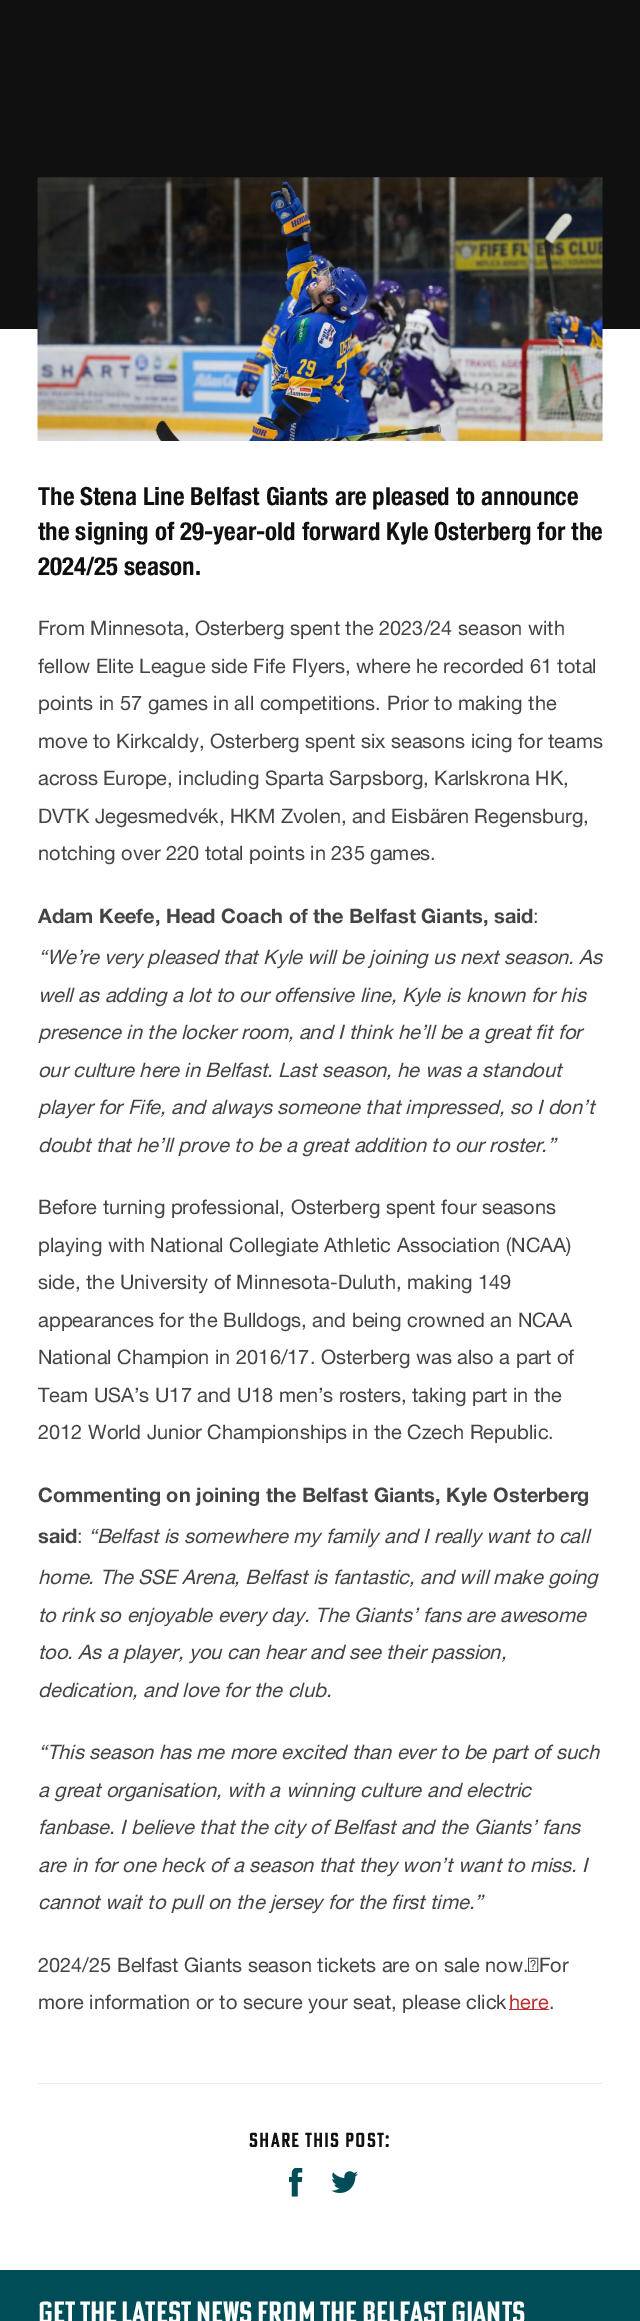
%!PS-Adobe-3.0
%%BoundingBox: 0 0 640 2321
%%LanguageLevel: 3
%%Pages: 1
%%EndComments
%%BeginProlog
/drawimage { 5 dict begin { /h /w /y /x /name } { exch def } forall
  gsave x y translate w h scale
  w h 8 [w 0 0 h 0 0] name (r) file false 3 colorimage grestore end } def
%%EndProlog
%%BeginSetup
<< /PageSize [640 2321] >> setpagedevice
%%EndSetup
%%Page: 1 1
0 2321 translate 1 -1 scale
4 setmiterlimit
0.067 0.063 0.063 setrgbcolor
0 0 640 2321 rectfill
1 setgray
0 329 640 1941 rectfill
(images/1.raw) 37 177 566 264 drawimage
0.737 0.184 0.173 setrgbcolor
509 2009 40 1 rectfill
0.922 setgray
38 2083 565 1 rectfill
(images/2.raw) 289 2168 14 29 drawimage
(images/3.raw) 331 2171 27 22 drawimage
0 0.302 0.345 setrgbcolor
0 2270 640 51 rectfill
/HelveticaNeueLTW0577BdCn-Bold [25 0 0 -25 0 0] selectfont
0.067 0.063 0.063 setrgbcolor
38 505 moveto (The Stena Line Belfast Giants are pleased to announce) show
38 540 moveto (the signing of 29-year-old forward Kyle Osterberg for the) show
38 575 moveto (2024/25 season.) show
/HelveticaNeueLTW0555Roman-Regular [20 0 0 -20 0 0] selectfont
0.267 setgray
38 635 moveto (From Minnesota, Osterberg spent the 2023/24 season with) show
38 673 moveto (fellow Elite League side Fife Flyers, where he recorded 61 total) show
38 710 moveto (points in 57 games in all competitions. Prior to making the) show
38 748 moveto (move to Kirkcaldy, Osterberg spent six seasons icing for teams) show
38 785 moveto (across Europe, including Sparta Sarpsborg, Karlskrona HK,) show
38 823 moveto (DVTK Jegesmedvék, HKM Zvolen, and Eisbären Regensburg,) show
38 860 moveto (notching over 220 total points in 235 games.) show
/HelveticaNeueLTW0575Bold-Bold [20 0 0 -20 0 0] selectfont
38 923 moveto (Adam Keefe, Head Coach of the Belfast Giants, said) show
/HelveticaNeueLTW0555Roman-Regular [20 0 0 -20 0 0] selectfont
533 923 moveto (:) show
/HelveticaNeueLTW0555Roman-Italic [20 0 0 -20 0 0] selectfont
38 964 moveto (“We’re very pleased that Kyle will be joining us next season. As) show
38 1002 moveto (well as adding a lot to our offensive line, Kyle is known for his) show
38 1039 moveto (presence in the locker room, and I think he’ll be a great fit for) show
38 1077 moveto (our culture here in Belfast. Last season, he was a standout) show
38 1114 moveto (player for Fife, and always someone that impressed, so I don’t) show
38 1152 moveto (doubt that he’ll prove to be a great addition to our roster.”) show
/HelveticaNeueLTW0555Roman-Regular [20 0 0 -20 0 0] selectfont
38 1214 moveto (Before turning professional, Osterberg spent four seasons) show
38 1252 moveto (playing with National Collegiate Athletic Association \(NCAA\)) show
38 1289 moveto (side, the University of Minnesota-Duluth, making 149) show
38 1327 moveto (appearances for the Bulldogs, and being crowned an NCAA) show
38 1364 moveto (National Champion in 2016/17. Osterberg was also a part of) show
38 1402 moveto (Team USA’s U17 and U18 men’s rosters, taking part in the) show
38 1439 moveto (2012 World Junior Championships in the Czech Republic.) show
/HelveticaNeueLTW0575Bold-Bold [20 0 0 -20 0 0] selectfont
38 1502 moveto (Commenting on joining the Belfast Giants, Kyle Osterberg) show
38 1543 moveto (said) show
/HelveticaNeueLTW0555Roman-Regular [20 0 0 -20 0 0] selectfont
77 1543 moveto (:) show
/HelveticaNeueLTW0555Roman-Italic [20 0 0 -20 0 0] selectfont
88 1543 moveto (“Belfast is somewhere my family and I really want to call) show
38 1584 moveto (home. The SSE Arena, Belfast is fantastic, and will make going) show
38 1622 moveto (to rink so enjoyable every day. The Giants’ fans are awesome) show
38 1659 moveto (too. As a player, you can hear and see their passion,) show
38 1697 moveto (dedication, and love for the club.) show
38 1759 moveto (“This season has me more excited than ever to be part of such) show
38 1797 moveto (a great organisation, with a winning culture and electric) show
38 1834 moveto (fanbase. I believe that the city of Belfast and the Giants’ fans) show
38 1872 moveto (are in for one heck of a season that they won’t want to miss. I) show
38 1909 moveto (cannot wait to pull on the jersey for the first time.”) show
/HelveticaNeueLTW0555Roman-Regular [20 0 0 -20 0 0] selectfont
38 1972 moveto (2024/25 Belfast Giants season tickets are on sale now. For) show
38 2009 moveto (more information or to secure your seat, please click) show
0.737 0.184 0.173 setrgbcolor
509 2009 moveto (here) show
0.267 setgray
549 2009 moveto (.) show
/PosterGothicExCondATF-Bold [20 0 0 -20 0 0] selectfont
0.067 0.063 0.063 setrgbcolor
249 2147 moveto 1.25 0 (Share this post:) ashow
/PosterGothicExCondATF-Bold [30 0 0 -30 0 0] selectfont
1 setgray
38 2323 moveto (Get the latest news from the Belfast Giants) show
showpage
%%EOF
